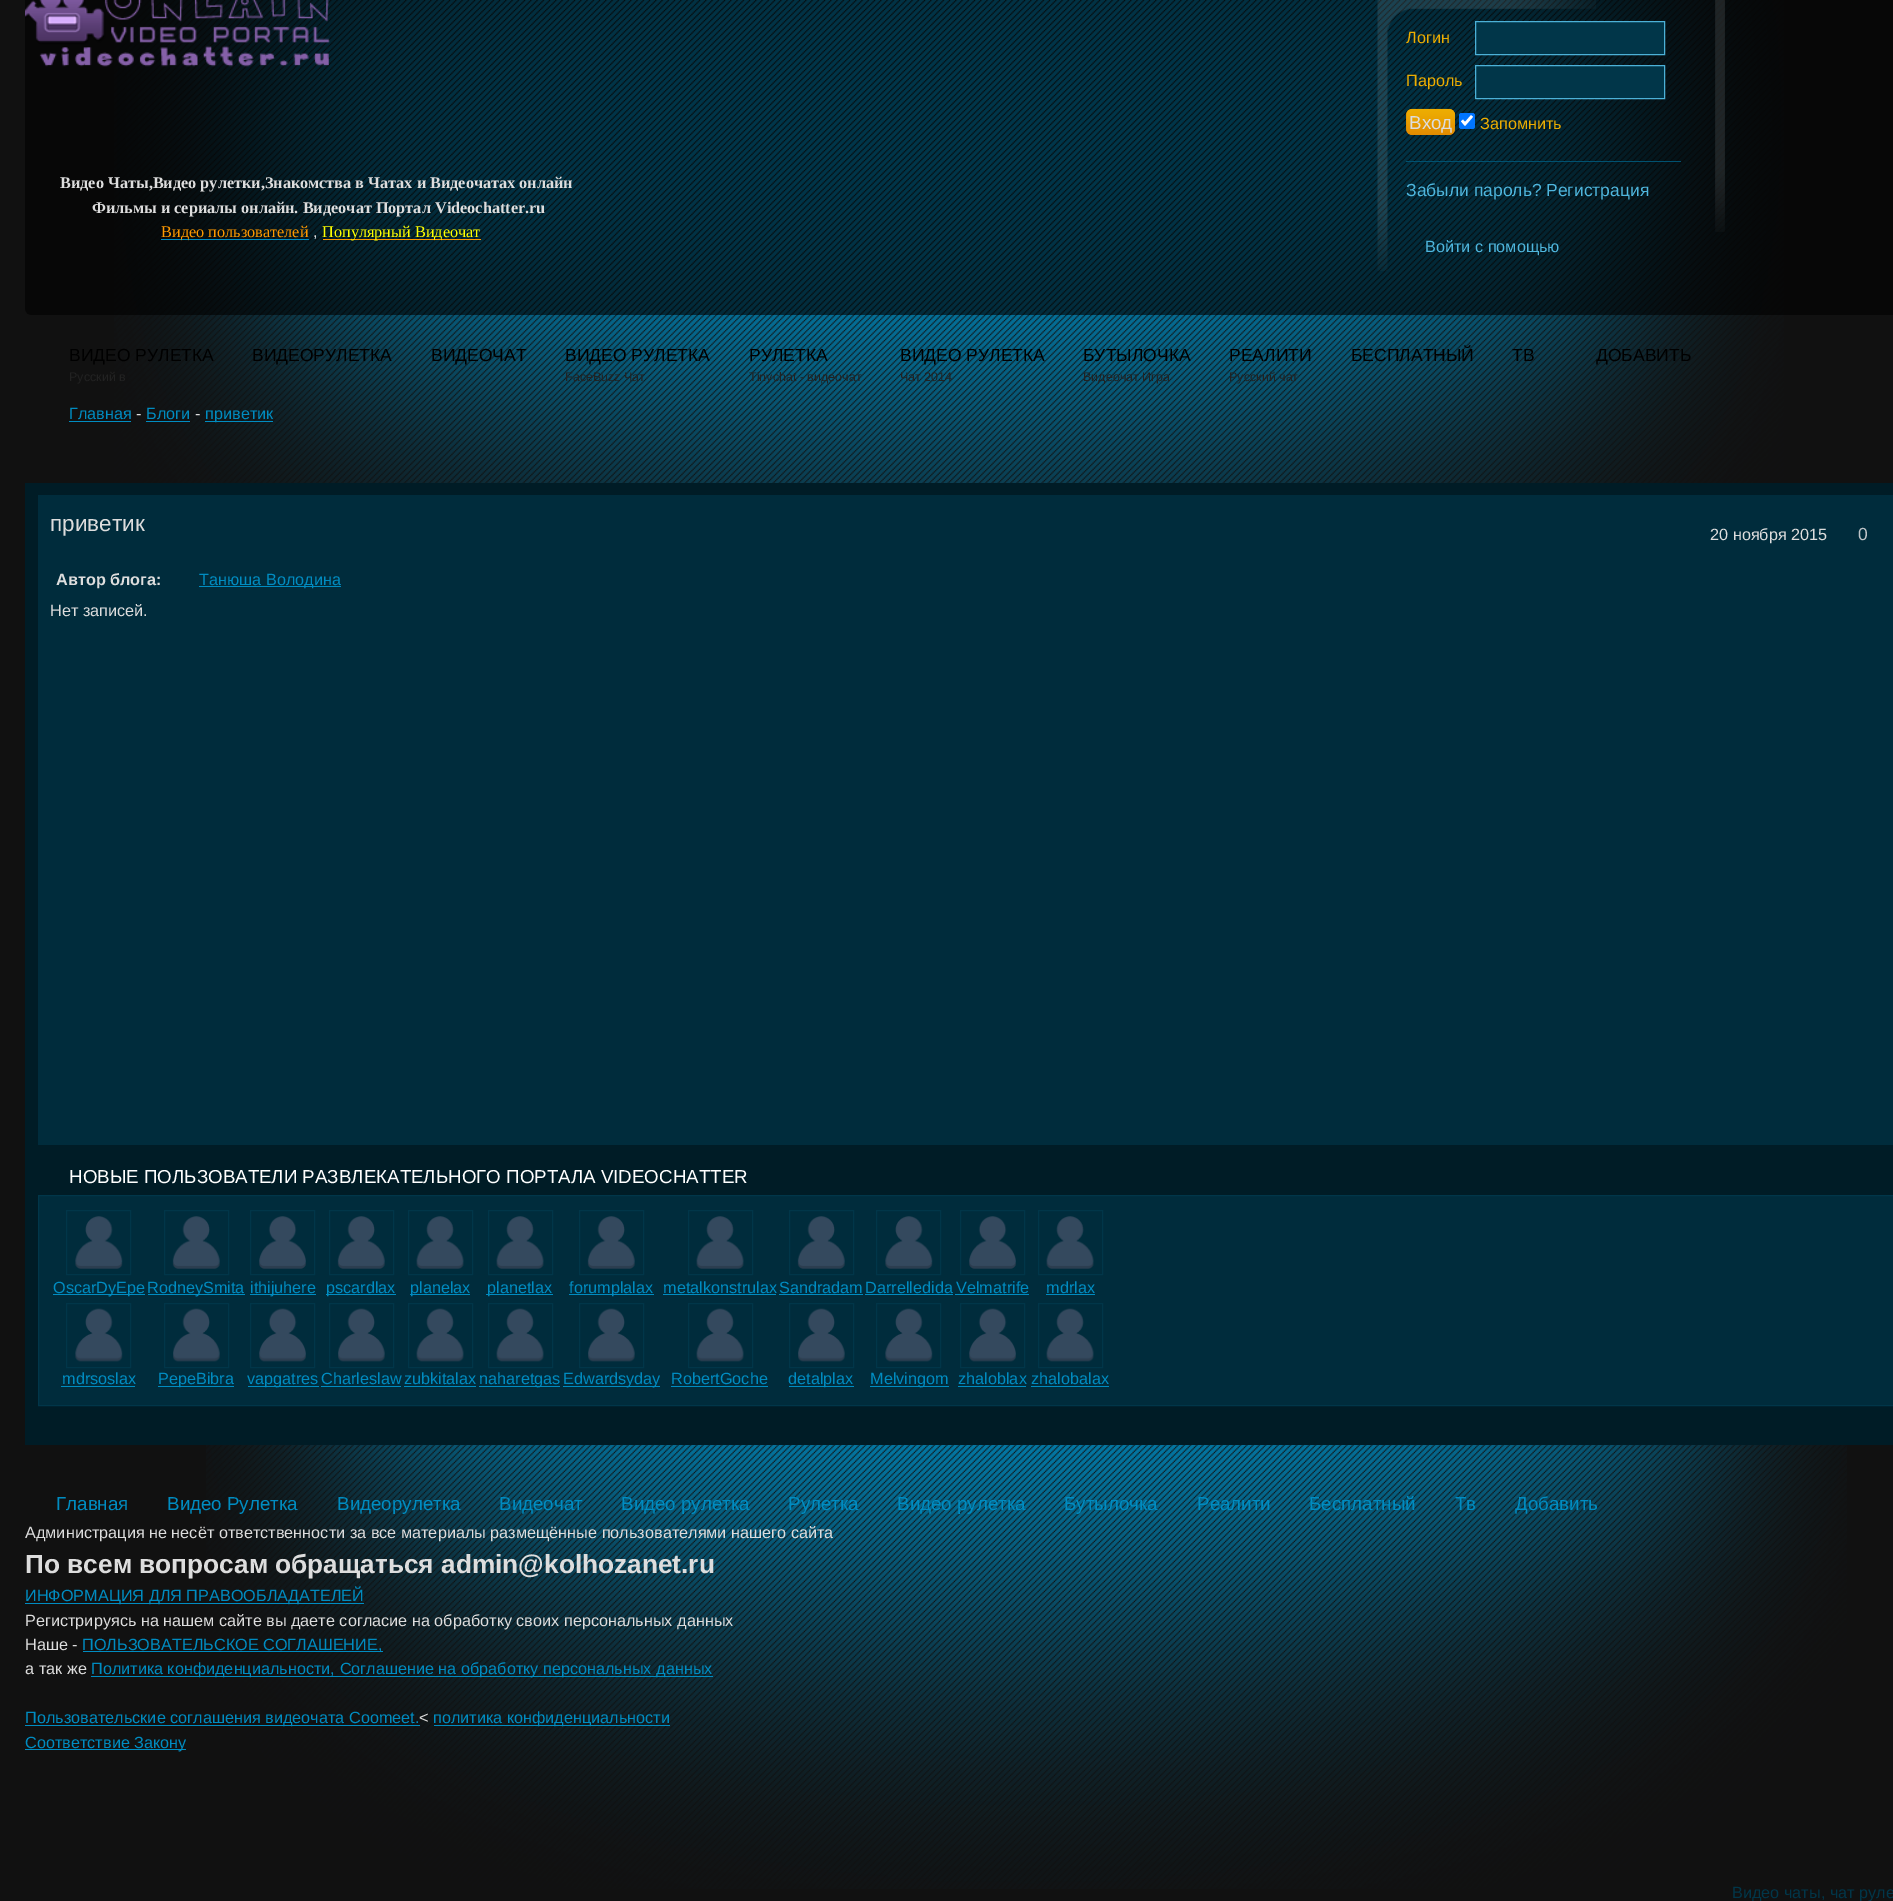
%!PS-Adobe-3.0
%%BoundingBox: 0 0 1893 1901
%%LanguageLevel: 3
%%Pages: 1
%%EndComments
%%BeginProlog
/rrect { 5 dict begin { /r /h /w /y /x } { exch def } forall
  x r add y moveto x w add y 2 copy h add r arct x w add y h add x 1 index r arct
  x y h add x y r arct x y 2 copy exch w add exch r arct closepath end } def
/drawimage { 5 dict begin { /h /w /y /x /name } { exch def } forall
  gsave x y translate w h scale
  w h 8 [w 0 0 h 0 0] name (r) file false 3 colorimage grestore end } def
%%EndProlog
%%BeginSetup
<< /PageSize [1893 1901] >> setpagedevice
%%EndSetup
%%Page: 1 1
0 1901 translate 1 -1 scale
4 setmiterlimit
0.067 setgray
0 0 1893 1901 rectfill
(images/1.raw) 114 0 1670 483 drawimage
(images/2.raw) 25 0 1868 315 drawimage
(images/3.raw) 25 0 305 67 drawimage
0 0.549 0.757 setrgbcolor
161 239 148 1 rectfill
1 0.6 0 setrgbcolor
323 239 158 1 rectfill
(images/4.raw) 1377 0 219 271 drawimage
0.004 0.212 0.286 setrgbcolor
newpath 1475.5 21.5 moveto 1664.5 21.5 lineto 1664.5 54.5 lineto 1475.5 54.5 lineto closepath gsave fill grestore
0.298 0.694 0.843 setrgbcolor
stroke
0.004 0.212 0.286 setrgbcolor
newpath 1475.5 65.5 moveto 1664.5 65.5 lineto 1664.5 98.5 lineto 1475.5 98.5 lineto closepath gsave fill grestore
0.298 0.694 0.843 setrgbcolor
stroke
0.878 0.525 0.004 setrgbcolor
1406 109 49 26 6 rrect fill
(images/5.raw) 1406 108 49 27 drawimage
0 0.459 1 setrgbcolor
1459 113 16 16 2.5 rrect fill
1 setgray
2.6 setlinewidth
newpath 1462 120.5 moveto 1465 124 lineto 1472 116 lineto stroke
0 0.318 0.439 setrgbcolor
1406 161 275 1 rectfill
(images/6.raw) 1715 0 10 232 drawimage
0 0.549 0.757 setrgbcolor
69 421 62 1 rectfill
146 421 44 1 rectfill
205 421 68 1 rectfill
0 0.11 0.149 setrgbcolor
25 483 1868 962 rectfill
0 0.173 0.235 setrgbcolor
38 495 1855 650 rectfill
0 0.549 0.757 setrgbcolor
199 586 142 1 rectfill
0 0.173 0.235 setrgbcolor
newpath 38.5 1195.5 moveto 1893.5 1195.5 lineto 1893.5 1405.5 lineto 38.5 1405.5 lineto closepath gsave fill grestore
0.004 0.212 0.286 setrgbcolor
1 setlinewidth
stroke
66.5 1210.5 64 64 rectstroke
(images/7.raw) 75 1216 48 53 drawimage
0 0.549 0.757 setrgbcolor
53 1294 92 1 rectfill
0.004 0.212 0.286 setrgbcolor
164.5 1210.5 64 64 rectstroke
(images/8.raw) 172 1216 48 53 drawimage
0 0.549 0.757 setrgbcolor
148 1294 97 1 rectfill
0.004 0.212 0.286 setrgbcolor
250.5 1210.5 64 64 rectstroke
(images/9.raw) 259 1216 47 53 drawimage
0 0.549 0.757 setrgbcolor
250 1294 66 1 rectfill
0.004 0.212 0.286 setrgbcolor
329.5 1210.5 64 64 rectstroke
(images/8.raw) 337 1216 48 53 drawimage
0 0.549 0.757 setrgbcolor
326 1294 70 1 rectfill
0.004 0.212 0.286 setrgbcolor
408.5 1210.5 64 64 rectstroke
(images/10.raw) 416 1216 48 53 drawimage
0 0.549 0.757 setrgbcolor
410 1294 60 1 rectfill
0.004 0.212 0.286 setrgbcolor
488.5 1210.5 64 64 rectstroke
(images/10.raw) 496 1216 48 53 drawimage
0 0.549 0.757 setrgbcolor
486 1294 67 1 rectfill
0.004 0.212 0.286 setrgbcolor
579.5 1210.5 64 64 rectstroke
(images/8.raw) 587 1216 48 53 drawimage
0 0.549 0.757 setrgbcolor
569 1294 85 1 rectfill
0.004 0.212 0.286 setrgbcolor
688.5 1210.5 64 64 rectstroke
(images/10.raw) 696 1216 48 53 drawimage
0 0.549 0.757 setrgbcolor
663 1294 113 1 rectfill
0.004 0.212 0.286 setrgbcolor
789.5 1210.5 64 64 rectstroke
(images/8.raw) 797 1216 48 53 drawimage
0 0.549 0.757 setrgbcolor
779 1294 84 1 rectfill
0.004 0.212 0.286 setrgbcolor
876.5 1210.5 64 64 rectstroke
(images/7.raw) 885 1216 48 53 drawimage
0 0.549 0.757 setrgbcolor
865 1294 88 1 rectfill
0.004 0.212 0.286 setrgbcolor
960.5 1210.5 64 64 rectstroke
(images/9.raw) 969 1216 47 53 drawimage
0 0.549 0.757 setrgbcolor
955 1294 74 1 rectfill
0.004 0.212 0.286 setrgbcolor
1038.5 1210.5 64 64 rectstroke
(images/10.raw) 1046 1216 48 53 drawimage
0 0.549 0.757 setrgbcolor
1046 1294 49 1 rectfill
0.004 0.212 0.286 setrgbcolor
66.5 1303.5 64 64 rectstroke
(images/11.raw) 75 1308 48 54 drawimage
0 0.549 0.757 setrgbcolor
61 1386 74 1 rectfill
0.004 0.212 0.286 setrgbcolor
164.5 1303.5 64 64 rectstroke
(images/12.raw) 173 1308 47 54 drawimage
0 0.549 0.757 setrgbcolor
158 1386 76 1 rectfill
0.004 0.212 0.286 setrgbcolor
329.5 1303.5 64 64 rectstroke
(images/12.raw) 338 1308 47 54 drawimage
0 0.549 0.757 setrgbcolor
321 1386 80 1 rectfill
0.004 0.212 0.286 setrgbcolor
408.5 1303.5 64 64 rectstroke
(images/13.raw) 416 1308 48 54 drawimage
0 0.549 0.757 setrgbcolor
404 1386 72 1 rectfill
0.004 0.212 0.286 setrgbcolor
488.5 1303.5 64 64 rectstroke
(images/13.raw) 496 1308 48 54 drawimage
0 0.549 0.757 setrgbcolor
479 1386 81 1 rectfill
0.004 0.212 0.286 setrgbcolor
579.5 1303.5 64 64 rectstroke
(images/12.raw) 588 1308 47 54 drawimage
0 0.549 0.757 setrgbcolor
563 1386 97 1 rectfill
0.004 0.212 0.286 setrgbcolor
688.5 1303.5 64 64 rectstroke
(images/13.raw) 696 1308 48 54 drawimage
0 0.549 0.757 setrgbcolor
671 1386 97 1 rectfill
0.004 0.212 0.286 setrgbcolor
789.5 1303.5 64 64 rectstroke
(images/12.raw) 798 1308 47 54 drawimage
0 0.549 0.757 setrgbcolor
789 1386 65 1 rectfill
0.004 0.212 0.286 setrgbcolor
876.5 1303.5 64 64 rectstroke
(images/11.raw) 885 1308 48 54 drawimage
0 0.549 0.757 setrgbcolor
870 1386 79 1 rectfill
0.004 0.212 0.286 setrgbcolor
1038.5 1303.5 64 64 rectstroke
(images/13.raw) 1046 1308 48 54 drawimage
0 0.549 0.757 setrgbcolor
1031 1386 78 1 rectfill
0.004 0.212 0.286 setrgbcolor
250.5 1303.5 64 64 rectstroke
(images/14.raw) 259 1308 47 54 drawimage
0 0.549 0.757 setrgbcolor
248 1386 71 1 rectfill
0.004 0.212 0.286 setrgbcolor
960.5 1303.5 64 64 rectstroke
(images/14.raw) 969 1308 47 54 drawimage
0 0.549 0.757 setrgbcolor
958 1386 68 1 rectfill
(images/15.raw) 206 1445 1641 444 drawimage
25 1603 339 1 rectfill
83 1651 300 1 rectfill
91 1676 622 1 rectfill
25 1725 395 1 rectfill
434 1725 236 1 rectfill
25 1749 161 1 rectfill
/LiberationSerif-Bold [16.25 0 0 -16.25 0 0] selectfont
0.867 setgray
60 188 moveto (Видео Чаты,Видео рулетки,Знакомства в Чатах и Видеочатах онлайн) show
92 213 moveto (Фильмы и сериалы онлайн. Видеочат Портал Videochatter.ru) show
/LiberationSerif-Regular [16.25 0 0 -16.25 0 0] selectfont
1 0.6 0 setrgbcolor
161 237 moveto (Видео пользователей) show
/LiberationSans-Regular [16.25 0 0 -16.25 0 0] selectfont
0.867 setgray
313 237 moveto (,) show
/LiberationSerif-Regular [16.25 0 0 -16.25 0 0] selectfont
1 1 0 setrgbcolor
322 237 moveto (Популярный Видеочат) show
/LiberationSans-Regular [16.25 0 0 -16.25 0 0] selectfont
0.929 0.678 0.004 setrgbcolor
1406 43 moveto (Логин) show
1406 86 moveto (Пароль) show
/LiberationSans-Regular [18.75 0 0 -18.75 0 0] selectfont
0.867 setgray
1409 129 moveto (Вход) show
/LiberationSans-Regular [16.25 0 0 -16.25 0 0] selectfont
0.929 0.678 0.004 setrgbcolor
1480 129 moveto (Запомнить) show
/LiberationSans-Regular [17.5 0 0 -17.5 0 0] selectfont
0.31 0.714 0.867 setrgbcolor
1406 196 moveto (Забыли пароль?) show
1546 196 moveto (Регистрация) show
/LiberationSans-Regular [16.25 0 0 -16.25 0 0] selectfont
1425 252 moveto (Войти с помощью) show
/LiberationSans-Regular [17.5 0 0 -17.5 0 0] selectfont
0 setgray
69 361 moveto (ВИДЕО РУЛЕТКА) show
/LiberationSans-Regular [12.5 0 0 -12.5 0 0] selectfont
0.133 setgray
69 381 moveto (Русский в) show
/LiberationSans-Regular [17.5 0 0 -17.5 0 0] selectfont
0 setgray
252 361 moveto (ВИДЕОРУЛЕТКА) show
431 361 moveto (ВИДЕОЧАТ) show
565 361 moveto (ВИДЕО РУЛЕТКА) show
/LiberationSans-Regular [12.5 0 0 -12.5 0 0] selectfont
0.133 setgray
565 381 moveto (FaceBuzz Чат) show
/LiberationSans-Regular [17.5 0 0 -17.5 0 0] selectfont
0 setgray
749 361 moveto (РУЛЕТКА) show
/LiberationSans-Regular [12.5 0 0 -12.5 0 0] selectfont
0.133 setgray
749 381 moveto (Tinychat - видеочат) show
/LiberationSans-Regular [17.5 0 0 -17.5 0 0] selectfont
0 setgray
900 361 moveto (ВИДЕО РУЛЕТКА) show
/LiberationSans-Regular [12.5 0 0 -12.5 0 0] selectfont
0.133 setgray
900 381 moveto (Чат 2014) show
/LiberationSans-Regular [17.5 0 0 -17.5 0 0] selectfont
0 setgray
1083 361 moveto (БУТЫЛОЧКА) show
/LiberationSans-Regular [12.5 0 0 -12.5 0 0] selectfont
0.133 setgray
1083 381 moveto (Видеочат Игра) show
/LiberationSans-Regular [17.5 0 0 -17.5 0 0] selectfont
0 setgray
1229 361 moveto (РЕАЛИТИ) show
/LiberationSans-Regular [12.5 0 0 -12.5 0 0] selectfont
0.133 setgray
1229 381 moveto (Русский чат) show
/LiberationSans-Regular [17.5 0 0 -17.5 0 0] selectfont
0 setgray
1351 361 moveto (БЕСПЛАТНЫЙ) show
1512 361 moveto (ТВ) show
1596 361 moveto (ДОБАВИТЬ) show
/LiberationSans-Regular [16.25 0 0 -16.25 0 0] selectfont
0 0.549 0.757 setrgbcolor
69 419 moveto (Главная) show
0.867 setgray
136 419 moveto (-) show
0 0.549 0.757 setrgbcolor
146 419 moveto (Блоги) show
0.867 setgray
195 419 moveto (-) show
0 0.549 0.757 setrgbcolor
205 419 moveto (приветик) show
/LiberationSans-Regular [22.5 0 0 -22.5 0 0] selectfont
0.867 setgray
50 531 moveto (приветик) show
/LiberationSans-Regular [16.25 0 0 -16.25 0 0] selectfont
1710 540 moveto (20 ноября 2015) show
/LiberationSans-Regular [17.5 0 0 -17.5 0 0] selectfont
0.741 0.765 0.78 setrgbcolor
1858 540 moveto (0) show
/LiberationSans-Bold [16.25 0 0 -16.25 0 0] selectfont
0.867 setgray
56 585 moveto (Автор блога:) show
/LiberationSans-Regular [16.25 0 0 -16.25 0 0] selectfont
0 0.549 0.757 setrgbcolor
199 585 moveto (Танюша Володина) show
0.867 setgray
50 616 moveto (Нет записей.) show
/LiberationSans-Regular [18.75 0 0 -18.75 0 0] selectfont
1 setgray
69 1183 moveto (НОВЫЕ ПОЛЬЗОВАТЕЛИ РАЗВЛЕКАТЕЛЬНОГО ПОРТАЛА VIDEOCHATTER) show
/LiberationSans-Regular [16.25 0 0 -16.25 0 0] selectfont
0 0.549 0.757 setrgbcolor
53 1293 moveto (OscarDyEpe) show
147 1293 moveto (RodneySmita) show
250 1293 moveto (ithijuhere) show
326 1293 moveto (pscardlax) show
410 1293 moveto (planelax) show
487 1293 moveto (planetlax) show
569 1293 moveto (forumplalax) show
663 1293 moveto (metalkonstrulax) show
779 1293 moveto (Sandradam) show
865 1293 moveto (Darrelledida) show
956 1293 moveto (Velmatrife) show
1046 1293 moveto (mdrlax) show
62 1384 moveto (mdrsoslax) show
158 1384 moveto (PepeBibra) show
321 1384 moveto (Charleslaw) show
404 1384 moveto (zubkitalax) show
479 1384 moveto (naharetgas) show
563 1384 moveto (Edwardsyday) show
671 1384 moveto (RobertGoche) show
788 1384 moveto (detalplax) show
870 1384 moveto (Melvingom) show
247 1384 moveto (vapgatres) show
958 1384 moveto (zhaloblax zhalobalax) show
/LiberationSans-Regular [18.75 0 0 -18.75 0 0] selectfont
56 1510 moveto (Главная) show
167 1510 moveto (Видео Рулетка) show
337 1510 moveto (Видеорулетка) show
499 1510 moveto (Видеочат) show
621 1510 moveto (Видео рулетка) show
788 1510 moveto (Рулетка) show
897 1510 moveto (Видео рулетка) show
1064 1510 moveto (Бутылочка) show
1197 1510 moveto (Реалити) show
1309 1510 moveto (Бесплатный) show
1455 1510 moveto (Тв) show
1515 1510 moveto (Добавить) show
/LiberationSans-Regular [16.25 0 0 -16.25 0 0] selectfont
0.867 setgray
25 1538 moveto (Администрация не несёт ответственности за все материалы размещённые пользователями нашего сайта) show
/LiberationSans-Bold [26.25 0 0 -26.25 0 0] selectfont
25 1573 moveto (По всем вопросам обращаться admin@kolhozanet.ru) show
/LiberationSans-Regular [16.25 0 0 -16.25 0 0] selectfont
0 0.549 0.757 setrgbcolor
25 1601 moveto (ИНФОРМАЦИЯ ДЛЯ ПРАВООБЛАДАТЕЛЕЙ) show
0.867 setgray
25 1626 moveto (Регистрируясь на нашем сайте вы даете согласие на обработку своих персональных данных) show
25 1650 moveto (Наше -) show
0 0.549 0.757 setrgbcolor
82 1650 moveto (ПОЛЬЗОВАТЕЛЬСКОЕ СОГЛАШЕНИЕ,) show
0.867 setgray
25 1674 moveto (а так же) show
0 0.549 0.757 setrgbcolor
91 1674 moveto (Политика конфиденциальности, Соглашение на обработку персональных данных) show
25 1723 moveto (Пользовательские соглашения видеочата Coomeet.) show
0.867 setgray
419 1723 moveto (<) show
0 0.549 0.757 setrgbcolor
433 1723 moveto (политика конфиденциальности) show
25 1748 moveto (Соответствие Закону) show
0.004 0.212 0.286 setrgbcolor
1732 1898 moveto (Видео чаты, чат руле) show
showpage
%%EOF
